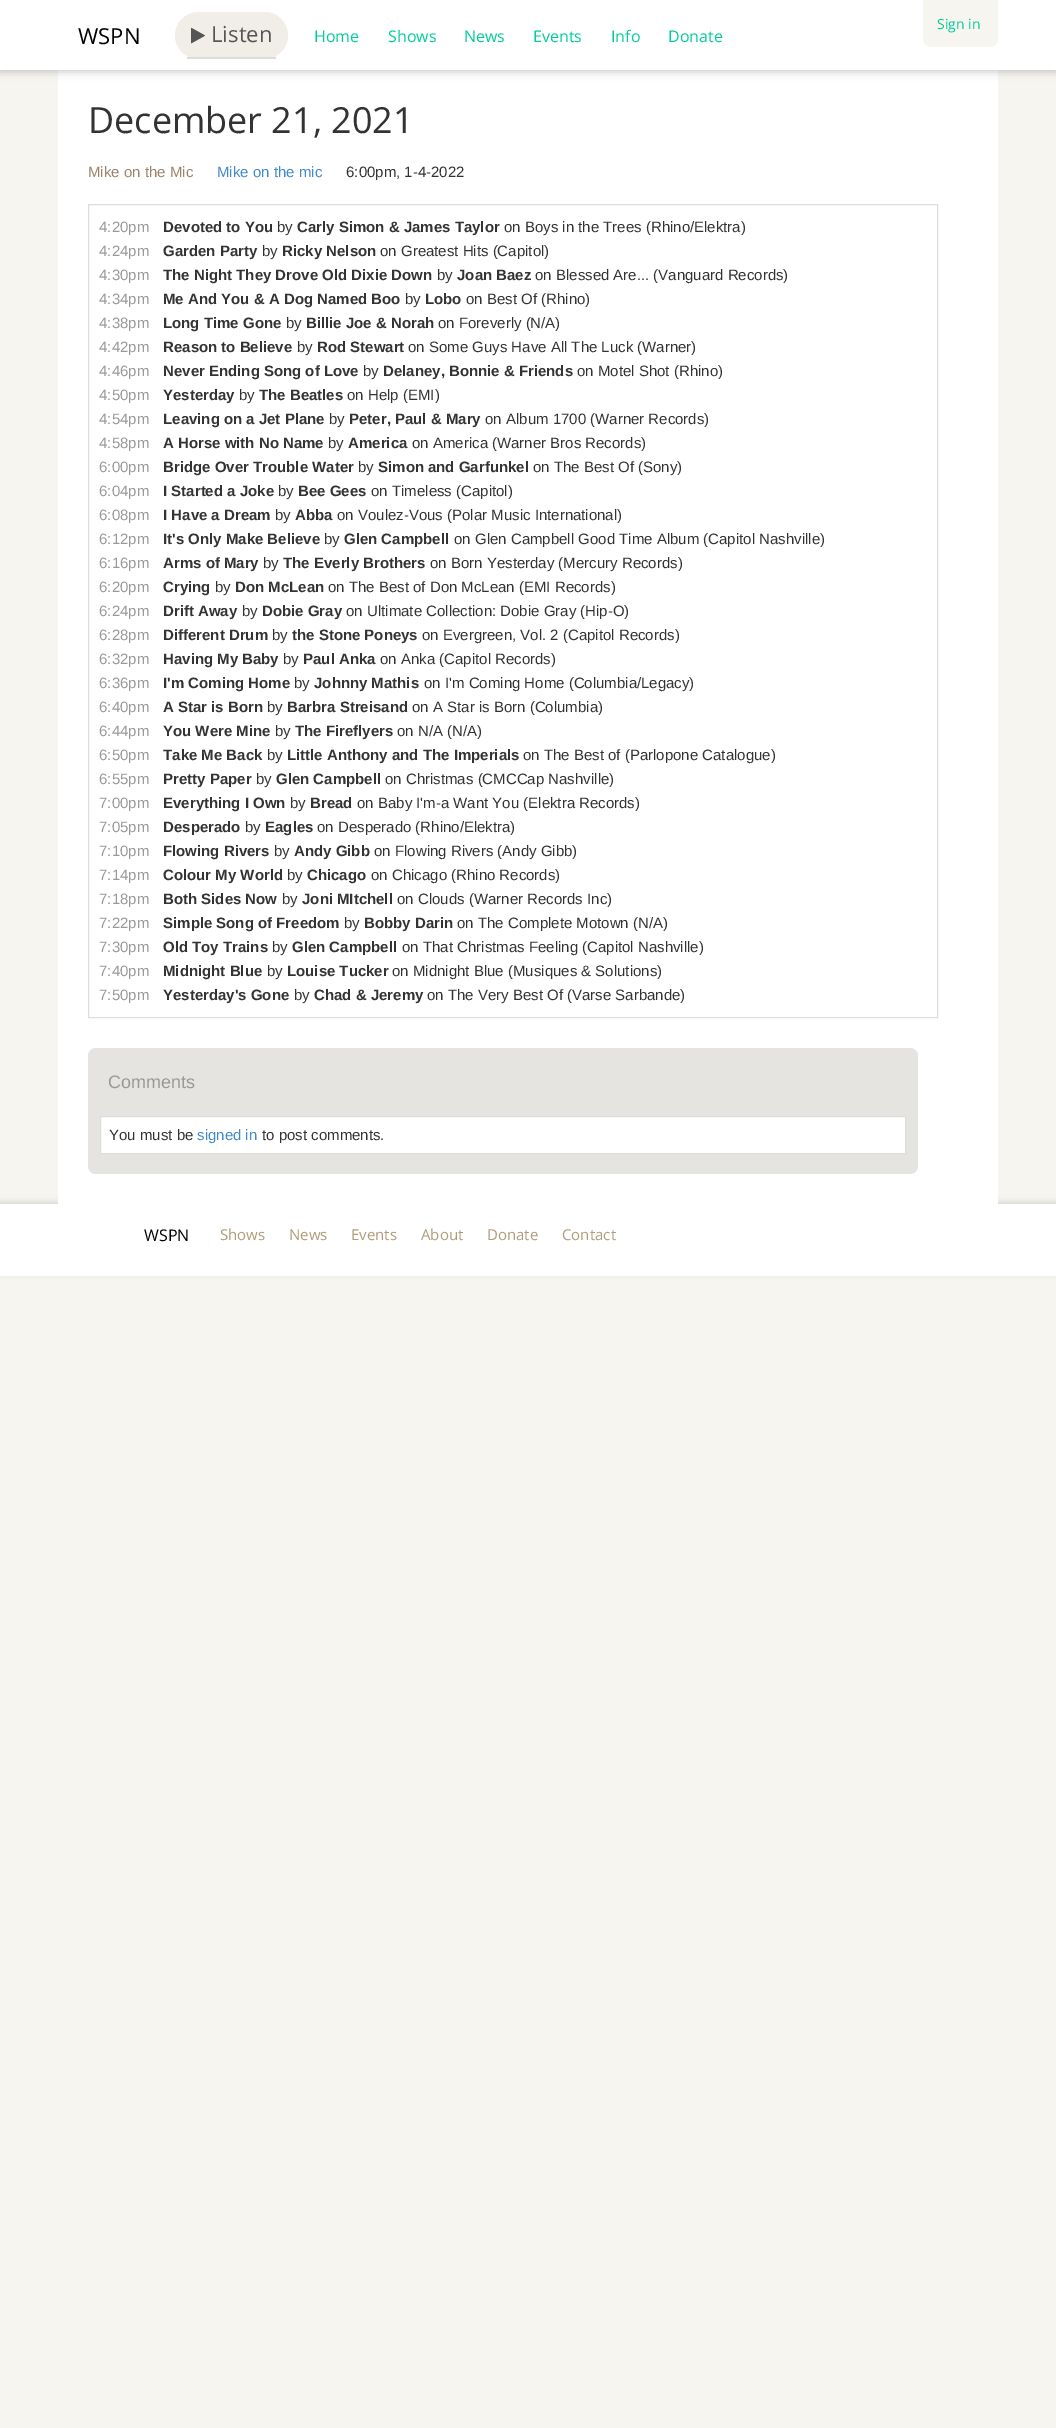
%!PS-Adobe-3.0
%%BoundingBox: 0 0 1056 2428
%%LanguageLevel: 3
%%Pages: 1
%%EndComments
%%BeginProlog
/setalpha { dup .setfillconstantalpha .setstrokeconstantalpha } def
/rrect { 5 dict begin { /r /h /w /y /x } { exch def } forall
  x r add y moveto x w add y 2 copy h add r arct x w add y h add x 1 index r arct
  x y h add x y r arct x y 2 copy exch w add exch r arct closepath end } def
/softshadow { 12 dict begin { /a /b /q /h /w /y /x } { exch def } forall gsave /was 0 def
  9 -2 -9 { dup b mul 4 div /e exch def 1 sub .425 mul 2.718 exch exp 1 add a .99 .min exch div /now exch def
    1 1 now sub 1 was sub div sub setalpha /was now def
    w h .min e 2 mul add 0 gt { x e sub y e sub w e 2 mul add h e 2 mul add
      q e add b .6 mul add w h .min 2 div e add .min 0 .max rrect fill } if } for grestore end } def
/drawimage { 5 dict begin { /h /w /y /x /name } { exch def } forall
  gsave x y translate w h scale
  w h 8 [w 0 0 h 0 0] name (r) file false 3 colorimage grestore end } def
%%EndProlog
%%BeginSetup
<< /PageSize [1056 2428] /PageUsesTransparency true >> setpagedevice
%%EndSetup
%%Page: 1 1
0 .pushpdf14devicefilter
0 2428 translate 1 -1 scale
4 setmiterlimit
0.965 0.961 0.941 setrgbcolor
0 0 1056 2428 rectfill
0 setgray
0 1202 1056 72 0 3 0.12 softshadow
1 setgray
58 70 940 1134 rectfill
0 setgray
0 2 1056 70 0 4 0.2 softshadow
1 setgray
0 0 1056 70 rectfill
0.941 0.933 0.902 setrgbcolor
175 12 113 47 23.5 rrect fill
0.867 setgray
187 57 89 2 rectfill
(images/1.raw) 191 27 14 17 drawimage
0.965 0.961 0.941 setrgbcolor
newpath 923 0 moveto 998 0 lineto 998 39 lineto 998 43.5 994.5 47 990 47 curveto 931 47 lineto 926.5 47 923 43.5 923 39 curveto closepath fill
0.867 setgray
88.5 204.5 849 813 rectstroke
0.898 0.894 0.878 setrgbcolor
88 1048 830 126 8 rrect fill
1 setgray
newpath 100.5 1116.5 moveto 905.5 1116.5 lineto 905.5 1153.5 lineto 100.5 1153.5 lineto closepath gsave fill grestore
0.867 setgray
stroke
1 setgray
0 1204 1056 72 rectfill
/OpenSans-Regular [22 0 0 -22 0 0] selectfont
0 setgray
78 44 moveto (WSPN) show
0.333 setgray
211 42 moveto (Listen) show
/OpenSans-Regular [16 0 0 -16 0 0] selectfont
0 0.8 0.6 setrgbcolor
314 42 moveto (Home) show
388 42 moveto (Shows) show
464 42 moveto (News) show
533 42 moveto (Events) show
611 42 moveto (Info) show
668 42 moveto (Donate) show
/OpenSans-Regular [14 0 0 -14 0 0] selectfont
937 29 moveto (Sign in) show
/OpenSans-Regular [36 0 0 -36 0 0] selectfont
0.2 setgray
88 133 moveto (December 21, 2021) show
/LiberationSans-Regular [15 0 0 -15 0 0] selectfont
0.612 0.518 0.416 setrgbcolor
88 177 moveto (Mike on the Mic) show
0.259 0.545 0.792 setrgbcolor
217 177 moveto (Mike on the mic) show
0.2 setgray
346 177 moveto (6:00pm, 1-4-2022) show
0.6 setgray
99 232 moveto (4:20pm) show
/LiberationSans-Bold [15 0 0 -15 0 0] selectfont
0.2 setgray
163 232 moveto (Devoted to You) show
/LiberationSans-Regular [15 0 0 -15 0 0] selectfont
277 232 moveto (by) show
/LiberationSans-Bold [15 0 0 -15 0 0] selectfont
297 232 moveto (Carly Simon & James Taylor) show
/LiberationSans-Regular [15 0 0 -15 0 0] selectfont
504 232 moveto (on Boys in the Trees \(Rhino/Elektra\)) show
0.6 setgray
99 256 moveto (4:24pm) show
/LiberationSans-Bold [15 0 0 -15 0 0] selectfont
0.2 setgray
163 256 moveto (Garden Party) show
/LiberationSans-Regular [15 0 0 -15 0 0] selectfont
262 256 moveto (by) show
/LiberationSans-Bold [15 0 0 -15 0 0] selectfont
282 256 moveto (Ricky Nelson) show
/LiberationSans-Regular [15 0 0 -15 0 0] selectfont
380 256 moveto (on Greatest Hits \(Capitol\)) show
0.6 setgray
99 280 moveto (4:30pm) show
/LiberationSans-Bold [15 0 0 -15 0 0] selectfont
0.2 setgray
163 280 moveto (The Night They Drove Old Dixie Down) show
/LiberationSans-Regular [15 0 0 -15 0 0] selectfont
437 280 moveto (by) show
/LiberationSans-Bold [15 0 0 -15 0 0] selectfont
457 280 moveto (Joan Baez) show
/LiberationSans-Regular [15 0 0 -15 0 0] selectfont
535 280 moveto (on Blessed Are... \(Vanguard Records\)) show
0.6 setgray
99 304 moveto (4:34pm) show
/LiberationSans-Bold [15 0 0 -15 0 0] selectfont
0.2 setgray
163 304 moveto (Me And You & A Dog Named Boo) show
/LiberationSans-Regular [15 0 0 -15 0 0] selectfont
405 304 moveto (by) show
/LiberationSans-Bold [15 0 0 -15 0 0] selectfont
425 304 moveto (Lobo) show
/LiberationSans-Regular [15 0 0 -15 0 0] selectfont
466 304 moveto (on Best Of \(Rhino\)) show
0.6 setgray
99 328 moveto (4:38pm) show
/LiberationSans-Bold [15 0 0 -15 0 0] selectfont
0.2 setgray
163 328 moveto (Long Time Gone) show
/LiberationSans-Regular [15 0 0 -15 0 0] selectfont
286 328 moveto (by) show
/LiberationSans-Bold [15 0 0 -15 0 0] selectfont
306 328 moveto (Billie Joe & Norah) show
/LiberationSans-Regular [15 0 0 -15 0 0] selectfont
438 328 moveto (on Foreverly \(N/A\)) show
0.6 setgray
99 352 moveto (4:42pm) show
/LiberationSans-Bold [15 0 0 -15 0 0] selectfont
0.2 setgray
163 352 moveto (Reason to Believe) show
/LiberationSans-Regular [15 0 0 -15 0 0] selectfont
297 352 moveto (by) show
/LiberationSans-Bold [15 0 0 -15 0 0] selectfont
317 352 moveto (Rod Stewart) show
/LiberationSans-Regular [15 0 0 -15 0 0] selectfont
408 352 moveto (on Some Guys Have All The Luck \(Warner\)) show
0.6 setgray
99 376 moveto (4:46pm) show
/LiberationSans-Bold [15 0 0 -15 0 0] selectfont
0.2 setgray
163 376 moveto (Never Ending Song of Love) show
/LiberationSans-Regular [15 0 0 -15 0 0] selectfont
363 376 moveto (by) show
/LiberationSans-Bold [15 0 0 -15 0 0] selectfont
383 376 moveto (Delaney, Bonnie & Friends) show
/LiberationSans-Regular [15 0 0 -15 0 0] selectfont
577 376 moveto (on Motel Shot \(Rhino\)) show
0.6 setgray
99 400 moveto (4:50pm) show
/LiberationSans-Bold [15 0 0 -15 0 0] selectfont
0.2 setgray
163 400 moveto (Yesterday) show
/LiberationSans-Regular [15 0 0 -15 0 0] selectfont
239 400 moveto (by) show
/LiberationSans-Bold [15 0 0 -15 0 0] selectfont
259 400 moveto (The Beatles) show
/LiberationSans-Regular [15 0 0 -15 0 0] selectfont
347 400 moveto (on Help \(EMI\)) show
0.6 setgray
99 424 moveto (4:54pm) show
/LiberationSans-Bold [15 0 0 -15 0 0] selectfont
0.2 setgray
163 424 moveto (Leaving on a Jet Plane) show
/LiberationSans-Regular [15 0 0 -15 0 0] selectfont
329 424 moveto (by) show
/LiberationSans-Bold [15 0 0 -15 0 0] selectfont
349 424 moveto (Peter, Paul & Mary) show
/LiberationSans-Regular [15 0 0 -15 0 0] selectfont
485 424 moveto (on Album 1700 \(Warner Records\)) show
0.6 setgray
99 448 moveto (4:58pm) show
/LiberationSans-Bold [15 0 0 -15 0 0] selectfont
0.2 setgray
163 448 moveto (A Horse with No Name) show
/LiberationSans-Regular [15 0 0 -15 0 0] selectfont
328 448 moveto (by) show
/LiberationSans-Bold [15 0 0 -15 0 0] selectfont
348 448 moveto (America) show
/LiberationSans-Regular [15 0 0 -15 0 0] selectfont
412 448 moveto (on America \(Warner Bros Records\)) show
0.6 setgray
99 472 moveto (6:00pm) show
/LiberationSans-Bold [15 0 0 -15 0 0] selectfont
0.2 setgray
163 472 moveto (Bridge Over Trouble Water) show
/LiberationSans-Regular [15 0 0 -15 0 0] selectfont
358 472 moveto (by) show
/LiberationSans-Bold [15 0 0 -15 0 0] selectfont
378 472 moveto (Simon and Garfunkel) show
/LiberationSans-Regular [15 0 0 -15 0 0] selectfont
533 472 moveto (on The Best Of \(Sony\)) show
0.6 setgray
99 496 moveto (6:04pm) show
/LiberationSans-Bold [15 0 0 -15 0 0] selectfont
0.2 setgray
163 496 moveto (I Started a Joke) show
/LiberationSans-Regular [15 0 0 -15 0 0] selectfont
278 496 moveto (by) show
/LiberationSans-Bold [15 0 0 -15 0 0] selectfont
298 496 moveto (Bee Gees) show
/LiberationSans-Regular [15 0 0 -15 0 0] selectfont
371 496 moveto (on Timeless \(Capitol\)) show
0.6 setgray
99 520 moveto (6:08pm) show
/LiberationSans-Bold [15 0 0 -15 0 0] selectfont
0.2 setgray
163 520 moveto (I Have a Dream) show
/LiberationSans-Regular [15 0 0 -15 0 0] selectfont
275 520 moveto (by) show
/LiberationSans-Bold [15 0 0 -15 0 0] selectfont
295 520 moveto (Abba) show
/LiberationSans-Regular [15 0 0 -15 0 0] selectfont
337 520 moveto (on Voulez-Vous \(Polar Music International\)) show
0.6 setgray
99 544 moveto (6:12pm) show
/LiberationSans-Bold [15 0 0 -15 0 0] selectfont
0.2 setgray
163 544 moveto (It's Only Make Believe) show
/LiberationSans-Regular [15 0 0 -15 0 0] selectfont
324 544 moveto (by) show
/LiberationSans-Bold [15 0 0 -15 0 0] selectfont
344 544 moveto (Glen Campbell) show
/LiberationSans-Regular [15 0 0 -15 0 0] selectfont
454 544 moveto (on Glen Campbell Good Time Album \(Capitol Nashville\)) show
0.6 setgray
99 568 moveto (6:16pm) show
/LiberationSans-Bold [15 0 0 -15 0 0] selectfont
0.2 setgray
163 568 moveto (Arms of Mary) show
/LiberationSans-Regular [15 0 0 -15 0 0] selectfont
263 568 moveto (by) show
/LiberationSans-Bold [15 0 0 -15 0 0] selectfont
283 568 moveto (The Everly Brothers) show
/LiberationSans-Regular [15 0 0 -15 0 0] selectfont
430 568 moveto (on Born Yesterday \(Mercury Records\)) show
0.6 setgray
99 592 moveto (6:20pm) show
/LiberationSans-Bold [15 0 0 -15 0 0] selectfont
0.2 setgray
163 592 moveto (Crying) show
/LiberationSans-Regular [15 0 0 -15 0 0] selectfont
215 592 moveto (by) show
/LiberationSans-Bold [15 0 0 -15 0 0] selectfont
235 592 moveto (Don McLean) show
/LiberationSans-Regular [15 0 0 -15 0 0] selectfont
328 592 moveto (on The Best of Don McLean \(EMI Records\)) show
0.6 setgray
99 616 moveto (6:24pm) show
/LiberationSans-Bold [15 0 0 -15 0 0] selectfont
0.2 setgray
163 616 moveto (Drift Away) show
/LiberationSans-Regular [15 0 0 -15 0 0] selectfont
242 616 moveto (by) show
/LiberationSans-Bold [15 0 0 -15 0 0] selectfont
262 616 moveto (Dobie Gray) show
/LiberationSans-Regular [15 0 0 -15 0 0] selectfont
346 616 moveto (on Ultimate Collection: Dobie Gray \(Hip-O\)) show
0.6 setgray
99 640 moveto (6:28pm) show
/LiberationSans-Bold [15 0 0 -15 0 0] selectfont
0.2 setgray
163 640 moveto (Different Drum) show
/LiberationSans-Regular [15 0 0 -15 0 0] selectfont
272 640 moveto (by) show
/LiberationSans-Bold [15 0 0 -15 0 0] selectfont
292 640 moveto (the Stone Poneys) show
/LiberationSans-Regular [15 0 0 -15 0 0] selectfont
422 640 moveto (on Evergreen, Vol. 2 \(Capitol Records\)) show
0.6 setgray
99 664 moveto (6:32pm) show
/LiberationSans-Bold [15 0 0 -15 0 0] selectfont
0.2 setgray
163 664 moveto (Having My Baby) show
/LiberationSans-Regular [15 0 0 -15 0 0] selectfont
283 664 moveto (by) show
/LiberationSans-Bold [15 0 0 -15 0 0] selectfont
303 664 moveto (Paul Anka) show
/LiberationSans-Regular [15 0 0 -15 0 0] selectfont
380 664 moveto (on Anka \(Capitol Records\)) show
0.6 setgray
99 688 moveto (6:36pm) show
/LiberationSans-Bold [15 0 0 -15 0 0] selectfont
0.2 setgray
163 688 moveto (I'm Coming Home) show
/LiberationSans-Regular [15 0 0 -15 0 0] selectfont
294 688 moveto (by) show
/LiberationSans-Bold [15 0 0 -15 0 0] selectfont
314 688 moveto (Johnny Mathis) show
/LiberationSans-Regular [15 0 0 -15 0 0] selectfont
424 688 moveto (on I'm Coming Home \(Columbia/Legacy\)) show
0.6 setgray
99 712 moveto (6:40pm) show
/LiberationSans-Bold [15 0 0 -15 0 0] selectfont
0.2 setgray
163 712 moveto (A Star is Born) show
/LiberationSans-Regular [15 0 0 -15 0 0] selectfont
267 712 moveto (by) show
/LiberationSans-Bold [15 0 0 -15 0 0] selectfont
287 712 moveto (Barbra Streisand) show
/LiberationSans-Regular [15 0 0 -15 0 0] selectfont
412 712 moveto (on A Star is Born \(Columbia\)) show
0.6 setgray
99 736 moveto (6:44pm) show
/LiberationSans-Bold [15 0 0 -15 0 0] selectfont
0.2 setgray
163 736 moveto (You Were Mine) show
/LiberationSans-Regular [15 0 0 -15 0 0] selectfont
275 736 moveto (by) show
/LiberationSans-Bold [15 0 0 -15 0 0] selectfont
295 736 moveto (The Fireflyers) show
/LiberationSans-Regular [15 0 0 -15 0 0] selectfont
397 736 moveto (on N/A \(N/A\)) show
0.6 setgray
99 760 moveto (6:50pm) show
/LiberationSans-Bold [15 0 0 -15 0 0] selectfont
0.2 setgray
163 760 moveto (Take Me Back) show
/LiberationSans-Regular [15 0 0 -15 0 0] selectfont
267 760 moveto (by) show
/LiberationSans-Bold [15 0 0 -15 0 0] selectfont
287 760 moveto (Little Anthony and The Imperials) show
/LiberationSans-Regular [15 0 0 -15 0 0] selectfont
523 760 moveto (on The Best of \(Parlopone Catalogue\)) show
0.6 setgray
99 784 moveto (6:55pm) show
/LiberationSans-Bold [15 0 0 -15 0 0] selectfont
0.2 setgray
163 784 moveto (Pretty Paper) show
/LiberationSans-Regular [15 0 0 -15 0 0] selectfont
256 784 moveto (by) show
/LiberationSans-Bold [15 0 0 -15 0 0] selectfont
276 784 moveto (Glen Campbell) show
/LiberationSans-Regular [15 0 0 -15 0 0] selectfont
385 784 moveto (on Christmas \(CMCCap Nashville\)) show
0.6 setgray
99 808 moveto (7:00pm) show
/LiberationSans-Bold [15 0 0 -15 0 0] selectfont
0.2 setgray
163 808 moveto (Everything I Own) show
/LiberationSans-Regular [15 0 0 -15 0 0] selectfont
290 808 moveto (by) show
/LiberationSans-Bold [15 0 0 -15 0 0] selectfont
310 808 moveto (Bread) show
/LiberationSans-Regular [15 0 0 -15 0 0] selectfont
357 808 moveto (on Baby I'm-a Want You \(Elektra Records\)) show
0.6 setgray
99 832 moveto (7:05pm) show
/LiberationSans-Bold [15 0 0 -15 0 0] selectfont
0.2 setgray
163 832 moveto (Desperado) show
/LiberationSans-Regular [15 0 0 -15 0 0] selectfont
245 832 moveto (by) show
/LiberationSans-Bold [15 0 0 -15 0 0] selectfont
265 832 moveto (Eagles) show
/LiberationSans-Regular [15 0 0 -15 0 0] selectfont
317 832 moveto (on Desperado \(Rhino/Elektra\)) show
0.6 setgray
99 856 moveto (7:10pm) show
/LiberationSans-Bold [15 0 0 -15 0 0] selectfont
0.2 setgray
163 856 moveto (Flowing Rivers) show
/LiberationSans-Regular [15 0 0 -15 0 0] selectfont
274 856 moveto (by) show
/LiberationSans-Bold [15 0 0 -15 0 0] selectfont
294 856 moveto (Andy Gibb) show
/LiberationSans-Regular [15 0 0 -15 0 0] selectfont
374 856 moveto (on Flowing Rivers \(Andy Gibb\)) show
0.6 setgray
99 880 moveto (7:14pm) show
/LiberationSans-Bold [15 0 0 -15 0 0] selectfont
0.2 setgray
163 880 moveto (Colour My World) show
/LiberationSans-Regular [15 0 0 -15 0 0] selectfont
287 880 moveto (by) show
/LiberationSans-Bold [15 0 0 -15 0 0] selectfont
307 880 moveto (Chicago) show
/LiberationSans-Regular [15 0 0 -15 0 0] selectfont
371 880 moveto (on Chicago \(Rhino Records\)) show
0.6 setgray
99 904 moveto (7:18pm) show
/LiberationSans-Bold [15 0 0 -15 0 0] selectfont
0.2 setgray
163 904 moveto (Both Sides Now) show
/LiberationSans-Regular [15 0 0 -15 0 0] selectfont
282 904 moveto (by) show
/LiberationSans-Bold [15 0 0 -15 0 0] selectfont
302 904 moveto (Joni MItchell) show
/LiberationSans-Regular [15 0 0 -15 0 0] selectfont
397 904 moveto (on Clouds \(Warner Records Inc\)) show
0.6 setgray
99 928 moveto (7:22pm) show
/LiberationSans-Bold [15 0 0 -15 0 0] selectfont
0.2 setgray
163 928 moveto (Simple Song of Freedom) show
/LiberationSans-Regular [15 0 0 -15 0 0] selectfont
344 928 moveto (by) show
/LiberationSans-Bold [15 0 0 -15 0 0] selectfont
364 928 moveto (Bobby Darin) show
/LiberationSans-Regular [15 0 0 -15 0 0] selectfont
457 928 moveto (on The Complete Motown \(N/A\)) show
0.6 setgray
99 952 moveto (7:30pm) show
/LiberationSans-Bold [15 0 0 -15 0 0] selectfont
0.2 setgray
163 952 moveto (Old Toy Trains) show
/LiberationSans-Regular [15 0 0 -15 0 0] selectfont
272 952 moveto (by) show
/LiberationSans-Bold [15 0 0 -15 0 0] selectfont
292 952 moveto (Glen Campbell) show
/LiberationSans-Regular [15 0 0 -15 0 0] selectfont
402 952 moveto (on That Christmas Feeling \(Capitol Nashville\)) show
0.6 setgray
99 976 moveto (7:40pm) show
/LiberationSans-Bold [15 0 0 -15 0 0] selectfont
0.2 setgray
163 976 moveto (Midnight Blue) show
/LiberationSans-Regular [15 0 0 -15 0 0] selectfont
267 976 moveto (by) show
/LiberationSans-Bold [15 0 0 -15 0 0] selectfont
287 976 moveto (Louise Tucker) show
/LiberationSans-Regular [15 0 0 -15 0 0] selectfont
392 976 moveto (on Midnight Blue \(Musiques & Solutions\)) show
0.6 setgray
99 1000 moveto (7:50pm) show
/LiberationSans-Bold [15 0 0 -15 0 0] selectfont
0.2 setgray
163 1000 moveto (Yesterday's Gone) show
/LiberationSans-Regular [15 0 0 -15 0 0] selectfont
294 1000 moveto (by) show
/LiberationSans-Bold [15 0 0 -15 0 0] selectfont
314 1000 moveto (Chad & Jeremy) show
/LiberationSans-Regular [15 0 0 -15 0 0] selectfont
427 1000 moveto (on The Very Best Of \(Varse Sarbande\)) show
/LiberationSans-Regular [18 0 0 -18 0 0] selectfont
0.6 setgray
108 1088 moveto (Comments) show
/LiberationSans-Regular [15 0 0 -15 0 0] selectfont
0.2 setgray
109 1140 moveto (You must be) show
0.259 0.545 0.792 setrgbcolor
197 1140 moveto (signed in) show
0.2 setgray
262 1140 moveto (to post comments.) show
/OpenSans-Regular [16 0 0 -16 0 0] selectfont
0 setgray
144 1241 moveto (WSPN) show
/OpenSans-Regular [15 0 0 -15 0 0] selectfont
0.686 0.612 0.475 setrgbcolor
220 1240 moveto (Shows) show
289 1240 moveto (News) show
351 1240 moveto (Events) show
421 1240 moveto (About) show
487 1240 moveto (Donate) show
562 1240 moveto (Contact) show
.poppdf14devicefilter showpage
%%EOF
